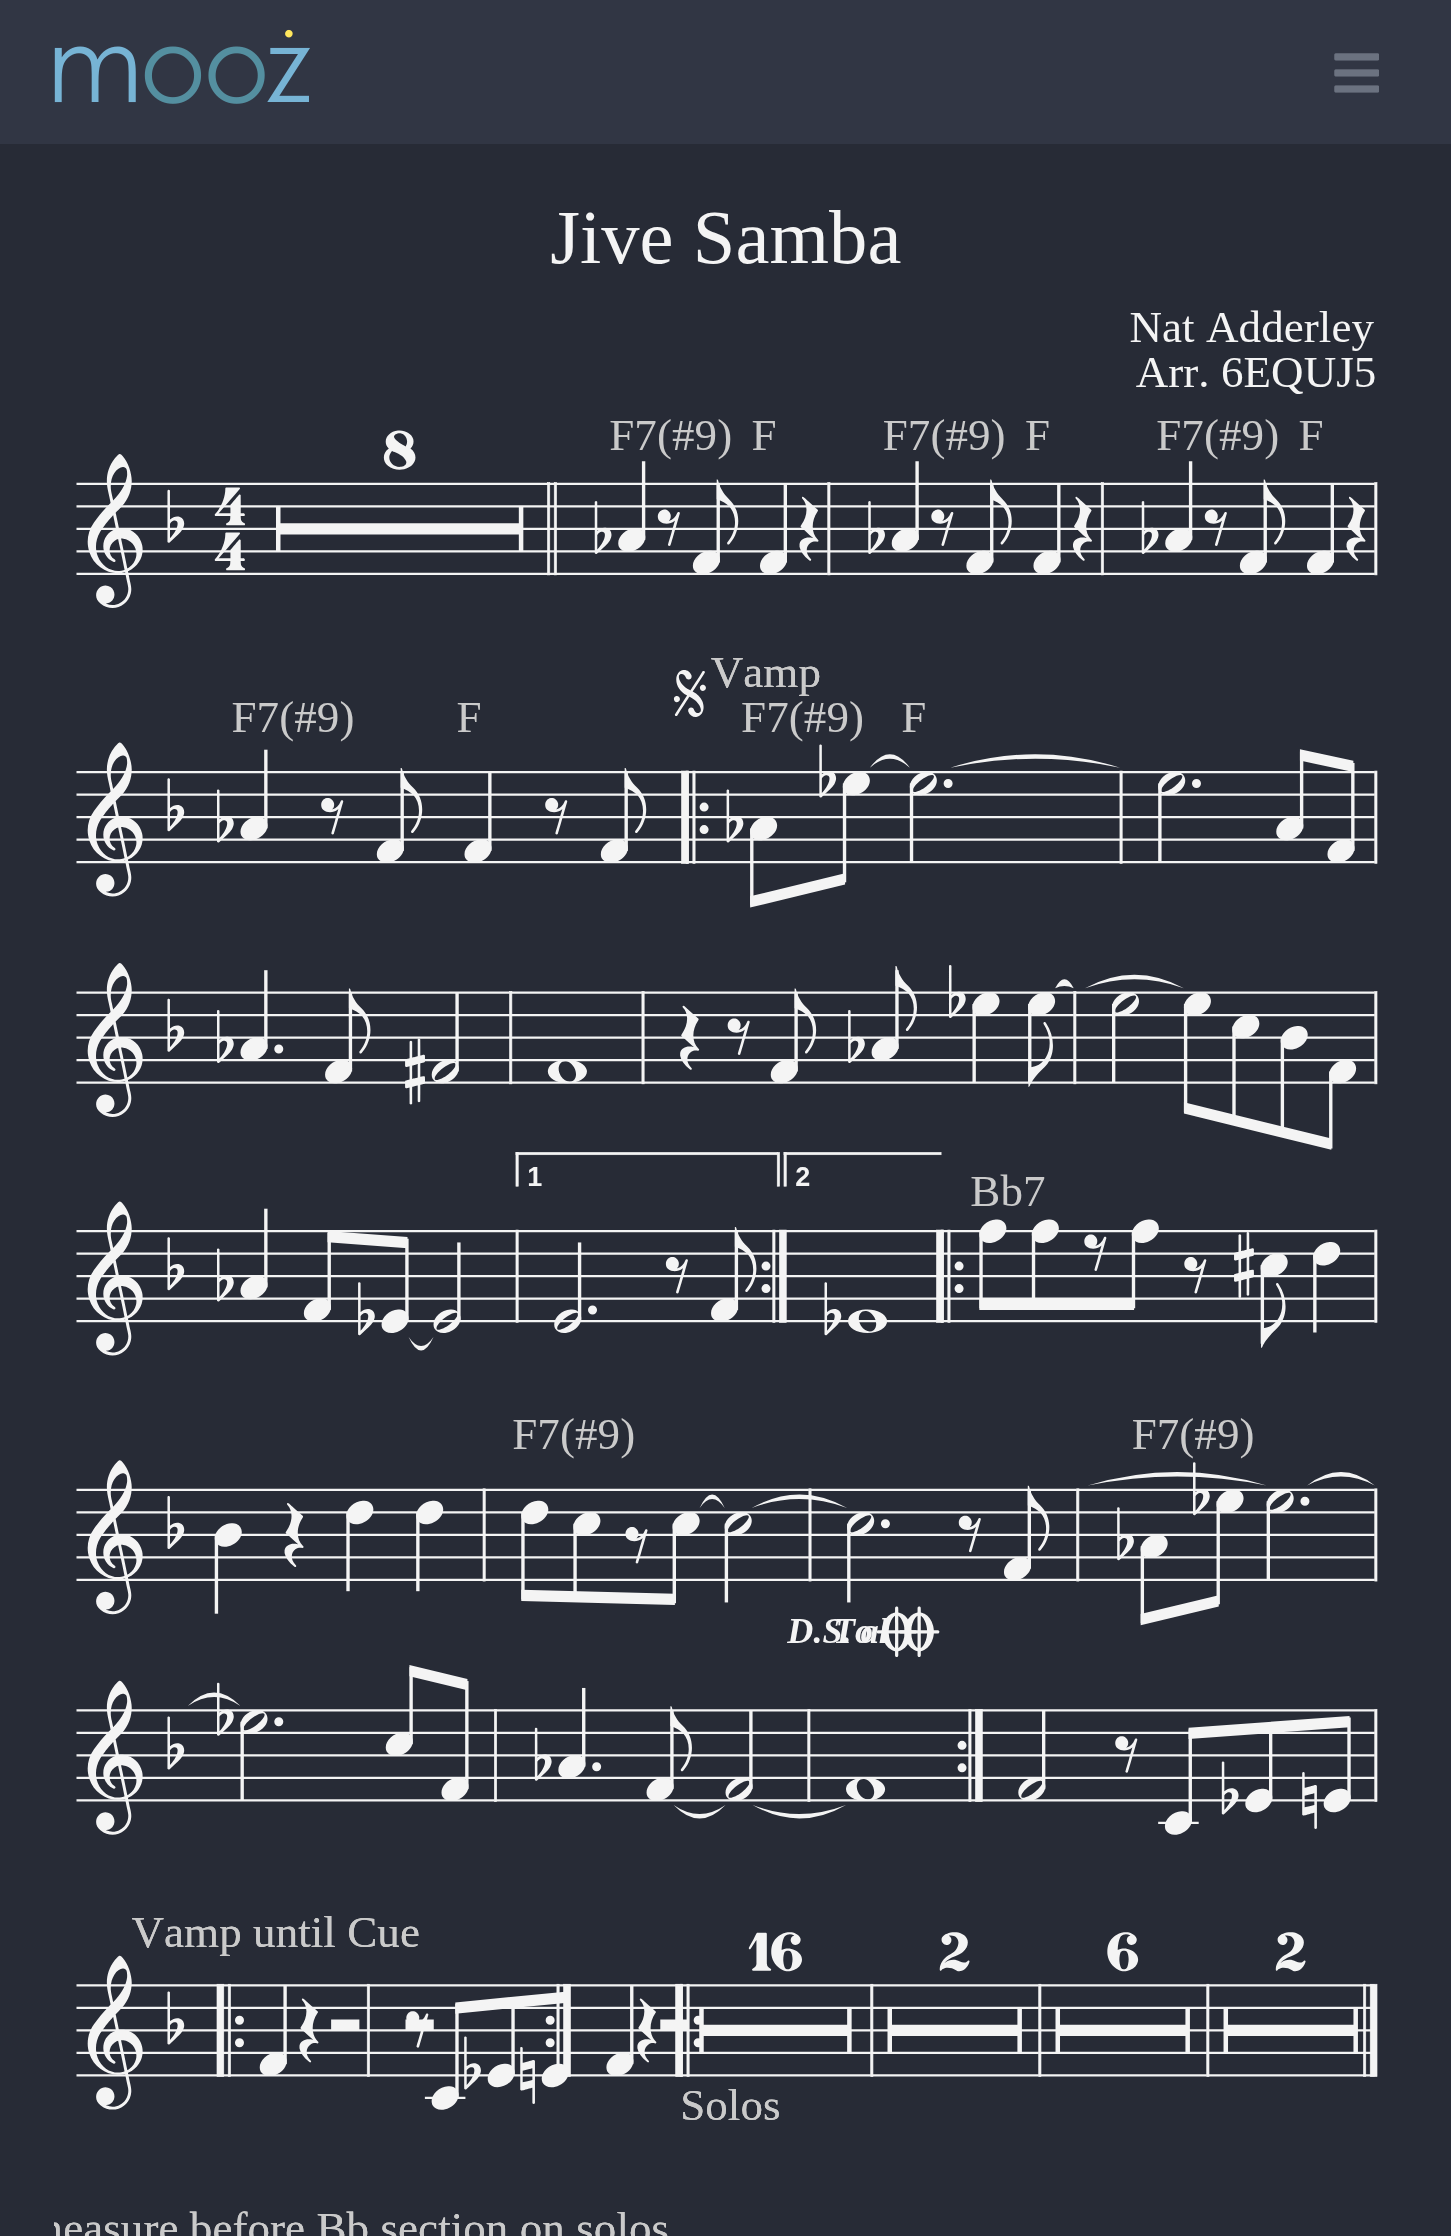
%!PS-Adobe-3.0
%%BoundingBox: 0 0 1451 2236
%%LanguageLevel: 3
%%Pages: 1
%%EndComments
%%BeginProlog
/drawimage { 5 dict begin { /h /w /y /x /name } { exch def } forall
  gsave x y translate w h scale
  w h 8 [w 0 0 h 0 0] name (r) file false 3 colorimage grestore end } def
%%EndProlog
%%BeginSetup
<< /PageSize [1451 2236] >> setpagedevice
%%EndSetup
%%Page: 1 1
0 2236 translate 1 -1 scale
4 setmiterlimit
0.153 0.169 0.212 setrgbcolor
0 0 1451 2236 rectfill
0.192 0.212 0.267 setrgbcolor
0 0 1451 144 rectfill
(images/1.raw) 54 29 256 75 drawimage
(images/2.raw) 1334 53 45 40 drawimage
(images/3.raw) 54 210 1324 2026 drawimage
showpage
%%EOF
